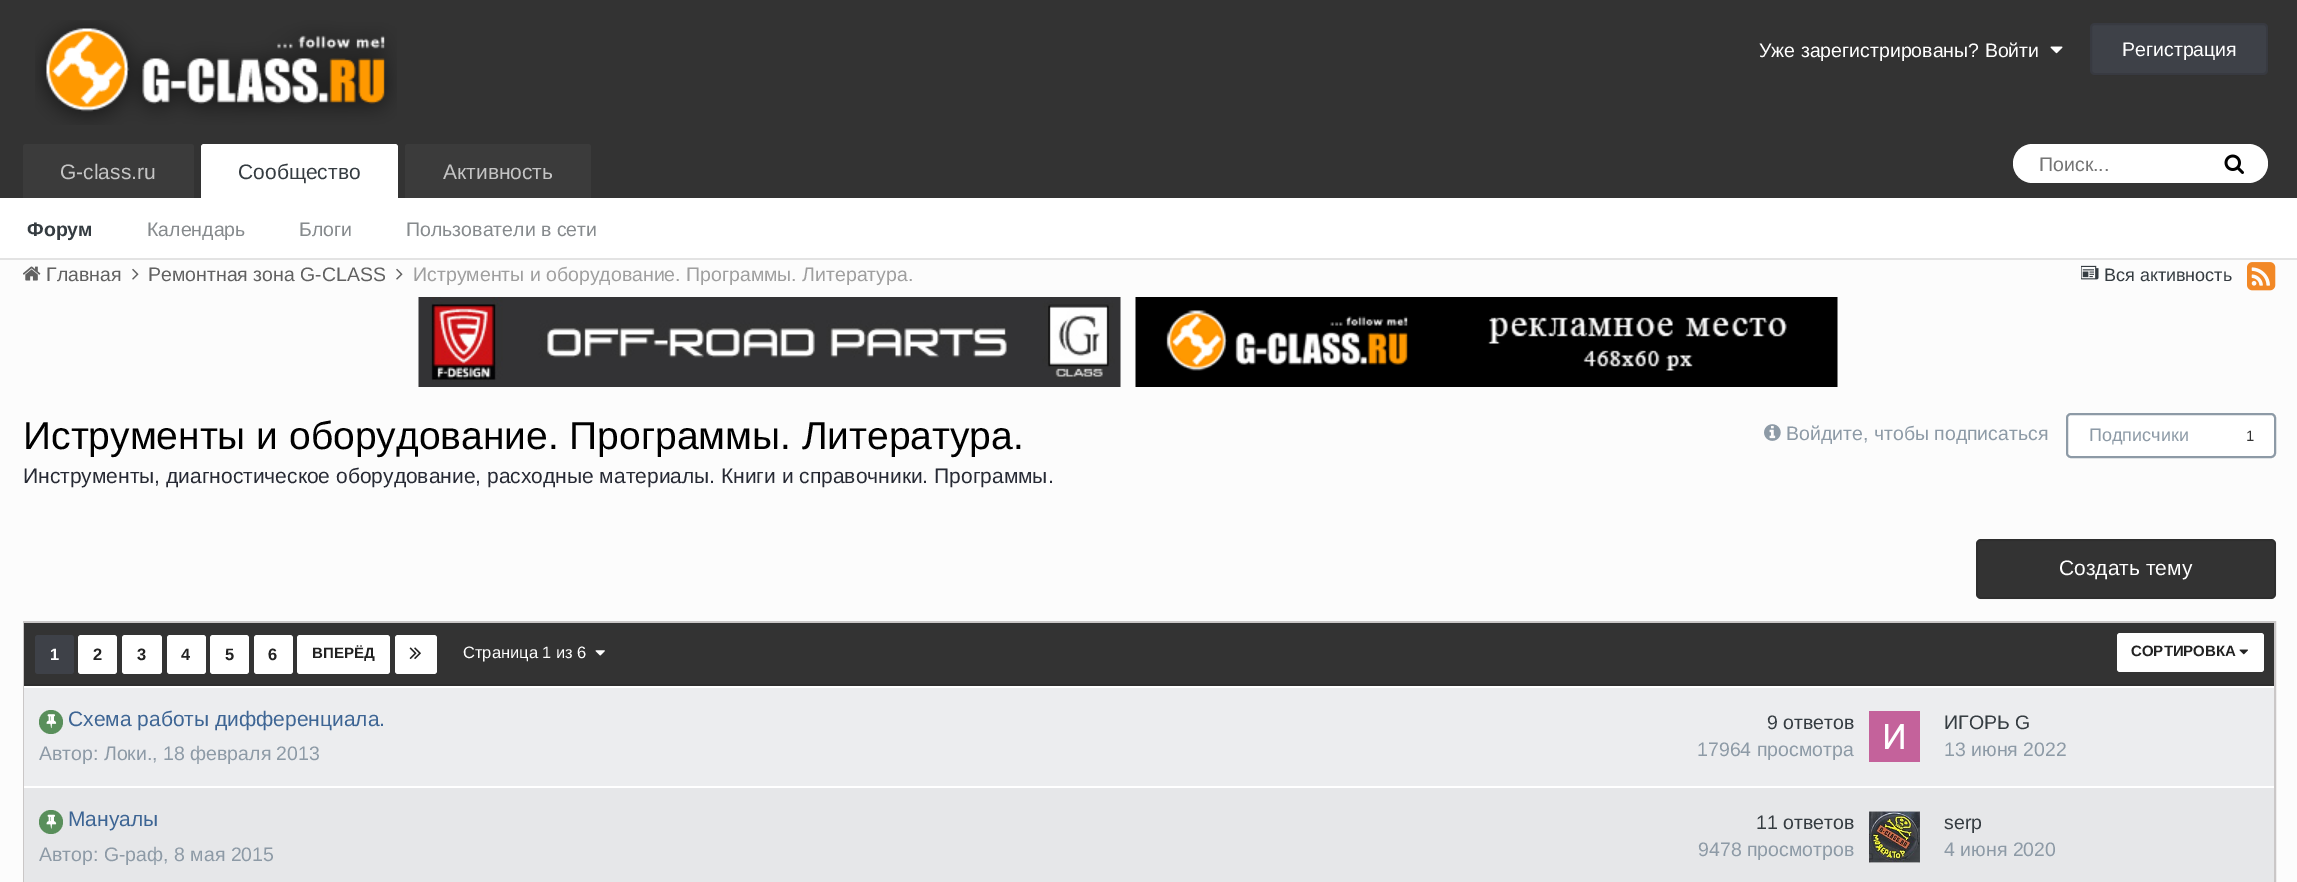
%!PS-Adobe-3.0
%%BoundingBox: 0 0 2297 882
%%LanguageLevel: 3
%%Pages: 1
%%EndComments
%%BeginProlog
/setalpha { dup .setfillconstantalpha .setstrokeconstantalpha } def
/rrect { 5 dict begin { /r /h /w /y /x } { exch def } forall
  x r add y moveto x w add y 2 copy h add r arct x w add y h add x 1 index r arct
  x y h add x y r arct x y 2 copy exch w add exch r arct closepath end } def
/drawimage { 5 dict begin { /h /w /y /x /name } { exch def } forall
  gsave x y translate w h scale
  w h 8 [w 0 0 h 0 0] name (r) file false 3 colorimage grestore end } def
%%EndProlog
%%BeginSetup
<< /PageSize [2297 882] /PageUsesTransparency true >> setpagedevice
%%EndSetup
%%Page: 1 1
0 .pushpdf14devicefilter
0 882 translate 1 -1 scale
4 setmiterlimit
0.988 setgray
0 0 2297 882 rectfill
0.89 setgray
0 258 2297 2 rectfill
0.2 setgray
0 0 2297 198 rectfill
(images/1.raw) 35 20 362 105 drawimage
(images/2.raw) 2050 46 13 8 drawimage
0.243 0.255 0.282 setrgbcolor
2090 23 178 52 5 rrect fill
0.1 setalpha
0 setgray
2 setlinewidth
2091 24 176 50 4 rrect stroke
1 setalpha
1 setgray
0 198 2297 60 rectfill
newpath 204 144 moveto 395 144 lineto 396.5 144 398 145.5 398 147 curveto 398 198 lineto 201 198 lineto 201 147 lineto 201 145.5 202.5 144 204 144 curveto closepath fill
0.231 setgray
newpath 26 144 moveto 191 144 lineto 192.5 144 194 145.5 194 147 curveto 194 198 lineto 23 198 lineto 23 147 lineto 23 145.5 24.5 144 26 144 curveto closepath fill
newpath 408 144 moveto 588 144 lineto 589.5 144 591 145.5 591 147 curveto 591 198 lineto 405 198 lineto 405 147 lineto 405 145.5 406.5 144 408 144 curveto closepath fill
1 setgray
2013 144 255 39 19.5 rrect fill
(images/3.raw) 2224 154 20 20 drawimage
(images/4.raw) 23 266 18 15 drawimage
(images/5.raw) 132 268 7 12 drawimage
(images/5.raw) 396 268 7 12 drawimage
(images/6.raw) 2081 265 18 15 drawimage
(images/7.raw) 2247 262 29 29 drawimage
0.973 setgray
1120 297 1 90 rectfill
(images/8.raw) 418 297 703 90 drawimage
1837 297 1 90 rectfill
(images/9.raw) 1135 297 703 90 drawimage
(images/10.raw) 1764 424 17 17 drawimage
1 setgray
2067 414 208 43 4 rrect gsave fill grestore
0.553 0.604 0.651 setrgbcolor
stroke
0.2 setgray
1976 539 300 60 5 rrect fill
0.1 setalpha
0 setgray
1977 540 298 58 4 rrect stroke
1 setalpha
0.792 0.78 0.78 setrgbcolor
24 622 2251 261 rectstroke
0.2 setgray
24 623 2250 61 rectfill
0.18 setgray
24 684 2250 2 rectfill
0.243 0.255 0.282 setrgbcolor
35 635 39 39 3 rrect fill
1 setgray
78 635 39 39 3 rrect fill
122 635 40 39 3 rrect fill
167 635 39 39 3 rrect fill
210 635 39 39 3 rrect fill
254 635 39 39 3 rrect fill
297 635 93 39 3 rrect fill
395 635 42 39 3 rrect fill
(images/11.raw) 409 647 12 12 drawimage
(images/12.raw) 595 650 10 6 drawimage
2117 633 147 39 3 rrect fill
(images/13.raw) 2239 649 9 6 drawimage
0.925 0.929 0.937 setrgbcolor
24 688 2250 98 rectfill
1 setgray
24 686 2250 2 rectfill
0.349 0.561 0.357 setrgbcolor
newpath 51 722 12 0 360 arc closepath fill
(images/14.raw) 46 714 11 15 drawimage
(images/15.raw) 1869 711 51 51 drawimage
0.902 0.906 0.914 setrgbcolor
24 788 2250 94 rectfill
1 setgray
24 786 2250 2 rectfill
0.349 0.561 0.357 setrgbcolor
newpath 51 822 12 0 360 arc closepath fill
(images/16.raw) 46 814 11 15 drawimage
1 setgray
1869 812 51 51 3 rrect fill
(images/17.raw) 1869 811 51 52 drawimage
/LiberationSans-Regular [19.5 0 0 -19.5 0 0] selectfont
1759 57 moveto (Уже зарегистрированы? Войти) show
2122 56 moveto (Регистрация) show
/LiberationSans-Regular [21 0 0 -21 0 0] selectfont
0.208 0.235 0.255 setrgbcolor
238 179 moveto (Сообщество) show
/LiberationSans-Bold [19.5 0 0 -19.5 0 0] selectfont
27 236 moveto (Форум) show
/LiberationSans-Regular [19.5 0 0 -19.5 0 0] selectfont
0.525 0.541 0.553 setrgbcolor
147 236 moveto (Календарь) show
299 236 moveto (Блоги) show
406 236 moveto (Пользователи в сети) show
/LiberationSans-Regular [21 0 0 -21 0 0] selectfont
0.769 setgray
60 179 moveto (G-class.ru) show
443 179 moveto (Активность) show
/LiberationSans-Regular [19.5 0 0 -19.5 0 0] selectfont
0.459 setgray
2039 171 moveto (Поиск...) show
0.38 setgray
46 281 moveto (Главная) show
148 281 moveto (Ремонтная зона G-CLASS) show
0.624 setgray
413 281 moveto (Иструменты и оборудование. Программы. Литература.) show
/LiberationSans-Regular [18 0 0 -18 0 0] selectfont
0.208 0.235 0.255 setrgbcolor
2104 281 moveto (Вся активность) show
/LiberationSans-Regular [39 0 0 -39 0 0] selectfont
0 setgray
23 449 moveto (Иструменты и оборудование. Программы. Литература.) show
/LiberationSans-Regular [19.5 0 0 -19.5 0 0] selectfont
0.553 0.604 0.651 setrgbcolor
1786 440 moveto (Войдите, чтобы подписаться) show
/LiberationSans-Regular [18 0 0 -18 0 0] selectfont
2089 441 moveto (Подписчики) show
/LiberationSans-Regular [15 0 0 -15 0 0] selectfont
0.2 setgray
2246 441 moveto (1) show
/LiberationSans-Regular [21 0 0 -21 0 0] selectfont
0.153 0.165 0.204 setrgbcolor
23 483 moveto (Инструменты, диагностическое оборудование, расходные материалы. Книги и справочники. Программы.) show
1 setgray
2059 575 moveto (Создать тему) show
/LiberationSans-Bold [16.5 0 0 -16.5 0 0] selectfont
50 660 moveto (1) show
0.133 setgray
93 660 moveto (2) show
137 660 moveto (3) show
181 660 moveto (4) show
225 660 moveto (5) show
268 660 moveto (6) show
/LiberationSans-Bold [15 0 0 -15 0 0] selectfont
312 658 moveto (ВПЕРЁД) show
/LiberationSans-Regular [16.5 0 0 -16.5 0 0] selectfont
1 setgray
463 658 moveto (Страница 1 из 6) show
/LiberationSans-Bold [15 0 0 -15 0 0] selectfont
0.133 setgray
2131 656 moveto (СОРТИРОВКА) show
/LiberationSans-Regular [21 0 0 -21 0 0] selectfont
0.239 0.396 0.58 setrgbcolor
68 726 moveto (Схема работы дифференциала.) show
/LiberationSans-Regular [19.5 0 0 -19.5 0 0] selectfont
0.553 0.604 0.651 setrgbcolor
39 760 moveto (Автор: Локи., 18 февраля 2013) show
0.208 0.235 0.255 setrgbcolor
1767 729 moveto (9 ответов) show
0.553 0.604 0.651 setrgbcolor
1697 756 moveto (17964 просмотра) show
0.208 0.235 0.255 setrgbcolor
1944 729 moveto (ИГОРЬ G) show
0.553 0.604 0.651 setrgbcolor
1944 756 moveto (13 июня 2022) show
/LiberationSans-Regular [21 0 0 -21 0 0] selectfont
0.239 0.396 0.58 setrgbcolor
68 826 moveto (Мануалы) show
/LiberationSans-Regular [19.5 0 0 -19.5 0 0] selectfont
0.553 0.604 0.651 setrgbcolor
39 861 moveto (Автор: G-раф, 8 мая 2015) show
0.208 0.235 0.255 setrgbcolor
1756 829 moveto (11 ответов) show
0.553 0.604 0.651 setrgbcolor
1698 856 moveto (9478 просмотров) show
0.208 0.235 0.255 setrgbcolor
1944 829 moveto (serp) show
0.553 0.604 0.651 setrgbcolor
1944 856 moveto (4 июня 2020) show
.poppdf14devicefilter showpage
%%EOF
